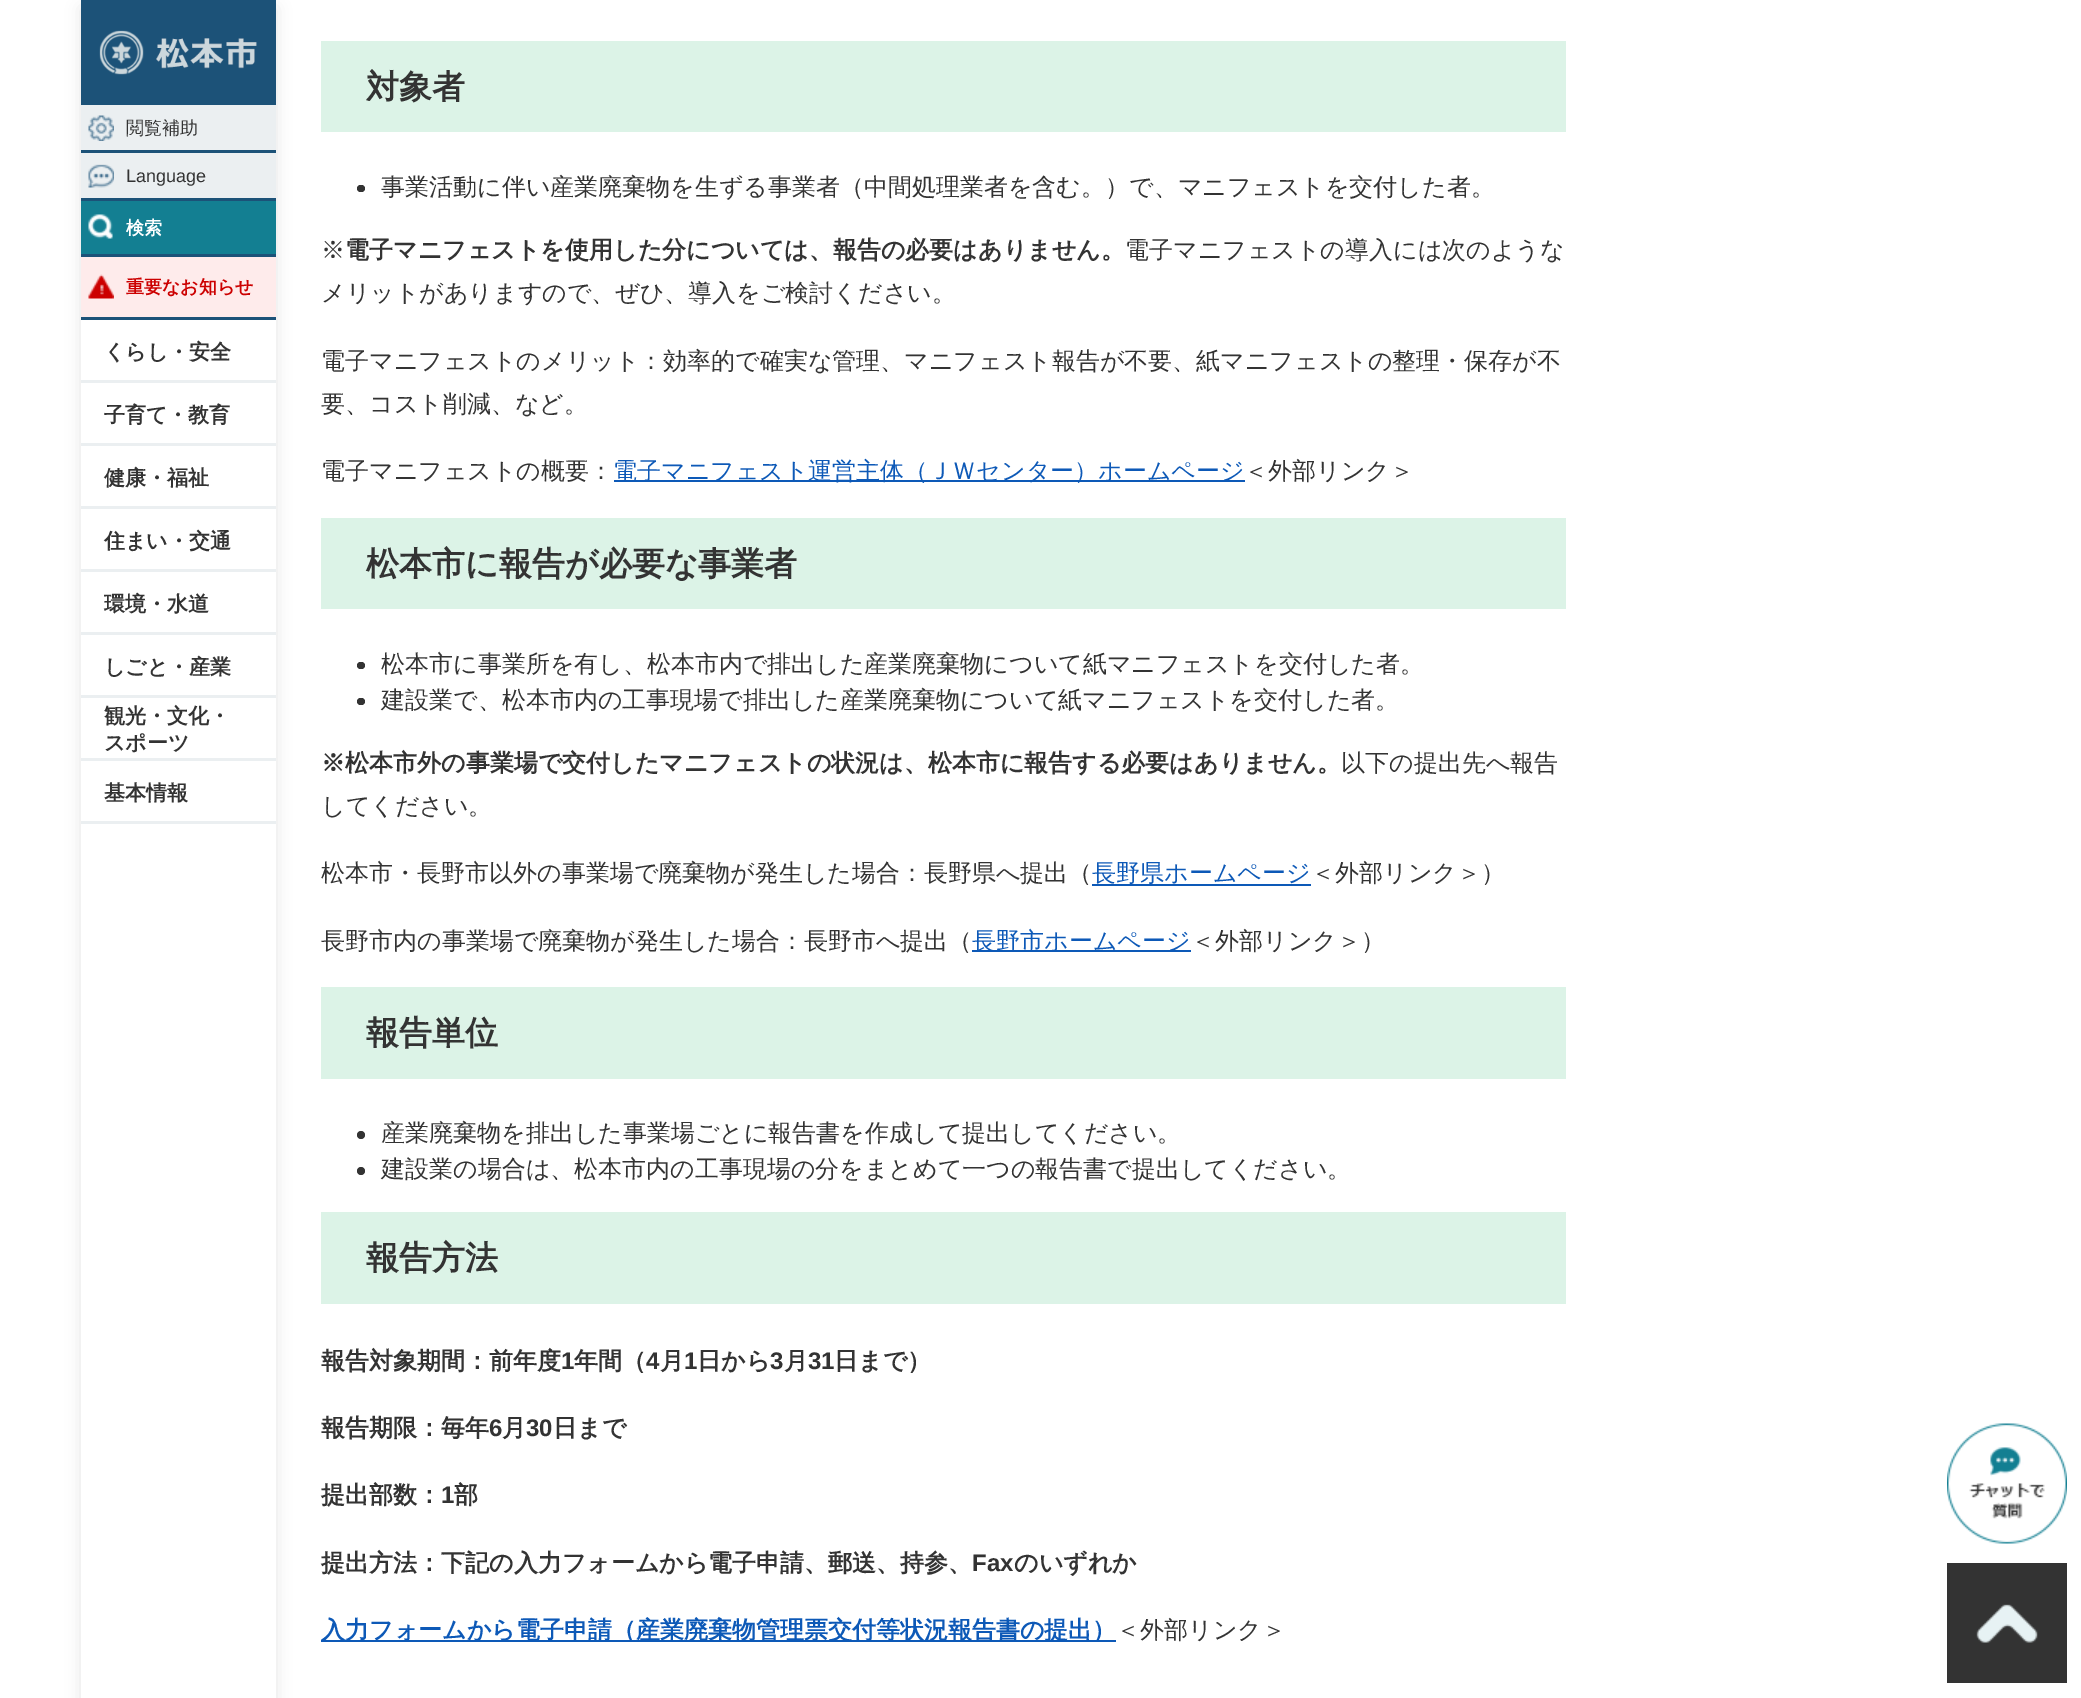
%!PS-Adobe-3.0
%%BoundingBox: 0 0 2081 1698
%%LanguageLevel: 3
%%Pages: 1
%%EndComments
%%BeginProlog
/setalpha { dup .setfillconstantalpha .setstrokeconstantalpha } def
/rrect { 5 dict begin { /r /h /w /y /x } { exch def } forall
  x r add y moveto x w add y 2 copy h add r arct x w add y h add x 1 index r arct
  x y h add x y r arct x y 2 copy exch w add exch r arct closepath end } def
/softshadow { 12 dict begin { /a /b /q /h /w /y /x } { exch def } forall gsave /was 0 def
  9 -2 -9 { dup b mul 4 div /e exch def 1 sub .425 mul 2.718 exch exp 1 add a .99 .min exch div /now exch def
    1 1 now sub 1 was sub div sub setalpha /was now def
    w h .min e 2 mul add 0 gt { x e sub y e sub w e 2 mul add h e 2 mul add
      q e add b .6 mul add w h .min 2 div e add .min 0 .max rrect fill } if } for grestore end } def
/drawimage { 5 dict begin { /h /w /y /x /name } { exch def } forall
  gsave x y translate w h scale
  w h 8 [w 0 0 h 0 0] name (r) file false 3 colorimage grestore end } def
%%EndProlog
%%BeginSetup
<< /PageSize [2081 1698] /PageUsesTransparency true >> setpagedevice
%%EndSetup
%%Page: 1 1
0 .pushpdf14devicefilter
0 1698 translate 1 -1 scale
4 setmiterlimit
1 setgray
0 0 2081 1698 rectfill
gsave
newpath 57 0 moveto 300 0 lineto 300 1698 lineto 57 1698 lineto closepath 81 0 moveto 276 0 lineto 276 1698 lineto 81 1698 lineto closepath eoclip newpath
0 setgray
81 8 195 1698 0 7.5 0.1 softshadow
grestore
0.11 0.322 0.471 setrgbcolor
81 0 195 105 rectfill
(images/1.raw) 99 30 158 45 drawimage
81 150 195 3 rectfill
0.922 0.937 0.945 setrgbcolor
81 105 195 45 rectfill
(images/2.raw) 88 115 26 26 drawimage
0.11 0.322 0.471 setrgbcolor
81 198 195 3 rectfill
0.922 0.937 0.945 setrgbcolor
81 153 195 45 rectfill
(images/3.raw) 88 164 26 24 drawimage
0.11 0.322 0.471 setrgbcolor
81 254 195 3 rectfill
0.075 0.498 0.573 setrgbcolor
81 201 195 53 rectfill
(images/4.raw) 88 214 25 25 drawimage
0.11 0.322 0.471 setrgbcolor
81 317 195 3 rectfill
0.996 0.922 0.922 setrgbcolor
81 257 195 60 rectfill
(images/5.raw) 88 274 26 25 drawimage
0.922 0.937 0.945 setrgbcolor
81 380 195 3 rectfill
81 443 195 3 rectfill
81 506 195 3 rectfill
81 569 195 3 rectfill
81 632 195 3 rectfill
81 695 195 3 rectfill
81 758 195 3 rectfill
81 821 195 3 rectfill
0.863 0.953 0.906 setrgbcolor
321 41 1245 91 rectfill
0.2 setgray
357 185 8 7 3.5 rrect fill
0.051 0.349 0.718 setrgbcolor
614 480 631 2 rectfill
0.863 0.953 0.906 setrgbcolor
321 518 1245 91 rectfill
0.2 setgray
357 662 8 7 3.5 rrect fill
357 698 8 7 3.5 rrect fill
0.051 0.349 0.718 setrgbcolor
1092 884 219 2 rectfill
972 950 219 2 rectfill
0.863 0.953 0.906 setrgbcolor
321 987 1245 92 rectfill
0.2 setgray
newpath 361 1135 4 0 360 arc closepath fill
newpath 361 1171 4 0 360 arc closepath fill
0.863 0.953 0.906 setrgbcolor
321 1212 1245 92 rectfill
0.051 0.349 0.718 setrgbcolor
321 1640 795 2 rectfill
(images/6.raw) 1947 1563 120 120 drawimage
(images/7.raw) 1947 1423 120 121 drawimage
/WenQuanYiZenHei-Medium [18 0 0 -18 0 0] selectfont
0.2 setgray
126 134 moveto (閲覧補助) show
/LiberationSans-Regular [18 0 0 -18 0 0] selectfont
126 182 moveto (Language) show
/WenQuanYiZenHei-Bold [18 0 0 -18 0 0] selectfont
1 setgray
126 234 moveto (検索) show
0.8 0 0 setrgbcolor
126 293 moveto (重要なお知らせ) show
/WenQuanYiZenHei-Bold [21 0 0 -21 0 0] selectfont
0.2 setgray
104 359 moveto (くらし・安全) show
104 422 moveto (子育て・教育) show
104 485 moveto (健康・福祉) show
104 548 moveto (住まい・交通) show
104 611 moveto (環境・水道) show
104 674 moveto (しごと・産業) show
104 723 moveto (観光・文化・) show
104 750 moveto (スポーツ) show
104 800 moveto (基本情報) show
/WenQuanYiZenHei-Bold [33 0 0 -33 0 0] selectfont
366 98 moveto (対象者) show
/WenQuanYiZenHei-Medium [24 0 0 -24 0 0] selectfont
381 195 moveto (事業活動に伴い産業廃棄物を生ずる事業者（中間処理業者を含む。）で、マニフェストを交付した者。) show
321 258 moveto (※) show
/WenQuanYiZenHei-Bold [24 0 0 -24 0 0] selectfont
345 258 moveto (電子マニフェストを使用した分については、報告の必要はありません。) show
/WenQuanYiZenHei-Medium [24 0 0 -24 0 0] selectfont
1125 258 moveto (電子マニフェストの導入には次のような) show
321 301 moveto (メリットがありますので、ぜひ、導入をご検討ください。) show
321 369 moveto (電子マニフェストのメリット：効率的で確実な管理、マニフェスト報告が不要、紙マニフェストの整理・保存が不) show
321 412 moveto (要、コスト削減、など。) show
321 479 moveto (電子マニフェストの概要：) show
0.051 0.349 0.718 setrgbcolor
613 479 moveto (電子マニフェスト運営主体（ＪＷセンター）ホームページ) show
0.2 setgray
1244 479 moveto (＜外部リンク＞) show
/WenQuanYiZenHei-Bold [33 0 0 -33 0 0] selectfont
366 575 moveto (松本市に報告が必要な事業者) show
/WenQuanYiZenHei-Medium [24 0 0 -24 0 0] selectfont
381 672 moveto (松本市に事業所を有し、松本市内で排出した産業廃棄物について紙マニフェストを交付した者。) show
381 708 moveto (建設業で、松本市内の工事現場で排出した産業廃棄物について紙マニフェストを交付した者。) show
/WenQuanYiZenHei-Bold [24 0 0 -24 0 0] selectfont
321 771 moveto (※松本市外の事業場で交付したマニフェストの状況は、松本市に報告する必要はありません。) show
/WenQuanYiZenHei-Medium [24 0 0 -24 0 0] selectfont
1341 771 moveto (以下の提出先へ報告) show
321 814 moveto (してください。) show
321 881 moveto (松本市・長野市以外の事業場で廃棄物が発生した場合：長野県へ提出（) show
0.051 0.349 0.718 setrgbcolor
1092 881 moveto (長野県ホームページ) show
0.2 setgray
1311 881 moveto (＜外部リンク＞）) show
321 949 moveto (長野市内の事業場で廃棄物が発生した場合：長野市へ提出（) show
0.051 0.349 0.718 setrgbcolor
972 949 moveto (長野市ホームページ) show
0.2 setgray
1191 949 moveto (＜外部リンク＞）) show
/WenQuanYiZenHei-Bold [33 0 0 -33 0 0] selectfont
366 1044 moveto (報告単位) show
/WenQuanYiZenHei-Medium [24 0 0 -24 0 0] selectfont
381 1141 moveto (産業廃棄物を排出した事業場ごとに報告書を作成して提出してください。) show
381 1177 moveto (建設業の場合は、松本市内の工事現場の分をまとめて一つの報告書で提出してください。) show
/WenQuanYiZenHei-Bold [33 0 0 -33 0 0] selectfont
366 1269 moveto (報告方法) show
/WenQuanYiZenHei-Bold [24 0 0 -24 0 0] selectfont
321 1369 moveto (報告対象期間：前年度) show
/LiberationSans-Bold [24 0 0 -24 0 0] selectfont
561 1369 moveto (1) show
/WenQuanYiZenHei-Bold [24 0 0 -24 0 0] selectfont
574 1369 moveto (年間（) show
/LiberationSans-Bold [24 0 0 -24 0 0] selectfont
646 1369 moveto (4) show
/WenQuanYiZenHei-Bold [24 0 0 -24 0 0] selectfont
660 1369 moveto (月) show
/LiberationSans-Bold [24 0 0 -24 0 0] selectfont
684 1369 moveto (1) show
/WenQuanYiZenHei-Bold [24 0 0 -24 0 0] selectfont
697 1369 moveto (日から) show
/LiberationSans-Bold [24 0 0 -24 0 0] selectfont
770 1369 moveto (3) show
/WenQuanYiZenHei-Bold [24 0 0 -24 0 0] selectfont
784 1369 moveto (月) show
/LiberationSans-Bold [24 0 0 -24 0 0] selectfont
808 1369 moveto (31) show
/WenQuanYiZenHei-Bold [24 0 0 -24 0 0] selectfont
834 1369 moveto (日まで）) show
321 1436 moveto (報告期限：毎年) show
/LiberationSans-Bold [24 0 0 -24 0 0] selectfont
489 1436 moveto (6) show
/WenQuanYiZenHei-Bold [24 0 0 -24 0 0] selectfont
502 1436 moveto (月) show
/LiberationSans-Bold [24 0 0 -24 0 0] selectfont
526 1436 moveto (30) show
/WenQuanYiZenHei-Bold [24 0 0 -24 0 0] selectfont
553 1436 moveto (日まで) show
321 1503 moveto (提出部数：) show
/LiberationSans-Bold [24 0 0 -24 0 0] selectfont
441 1503 moveto (1) show
/WenQuanYiZenHei-Bold [24 0 0 -24 0 0] selectfont
454 1503 moveto (部) show
321 1571 moveto (提出方法：下記の入力フォームから電子申請、郵送、持参、) show
/LiberationSans-Bold [24 0 0 -24 0 0] selectfont
972 1571 moveto (Fax) show
/WenQuanYiZenHei-Bold [24 0 0 -24 0 0] selectfont
1014 1571 moveto (のいずれか) show
0.051 0.349 0.718 setrgbcolor
321 1638 moveto (入力フォームから電子申請（産業廃棄物管理票交付等状況報告書の提出）) show
/WenQuanYiZenHei-Medium [24 0 0 -24 0 0] selectfont
0.2 setgray
1116 1638 moveto (＜外部リンク＞) show
.poppdf14devicefilter showpage
%%EOF
